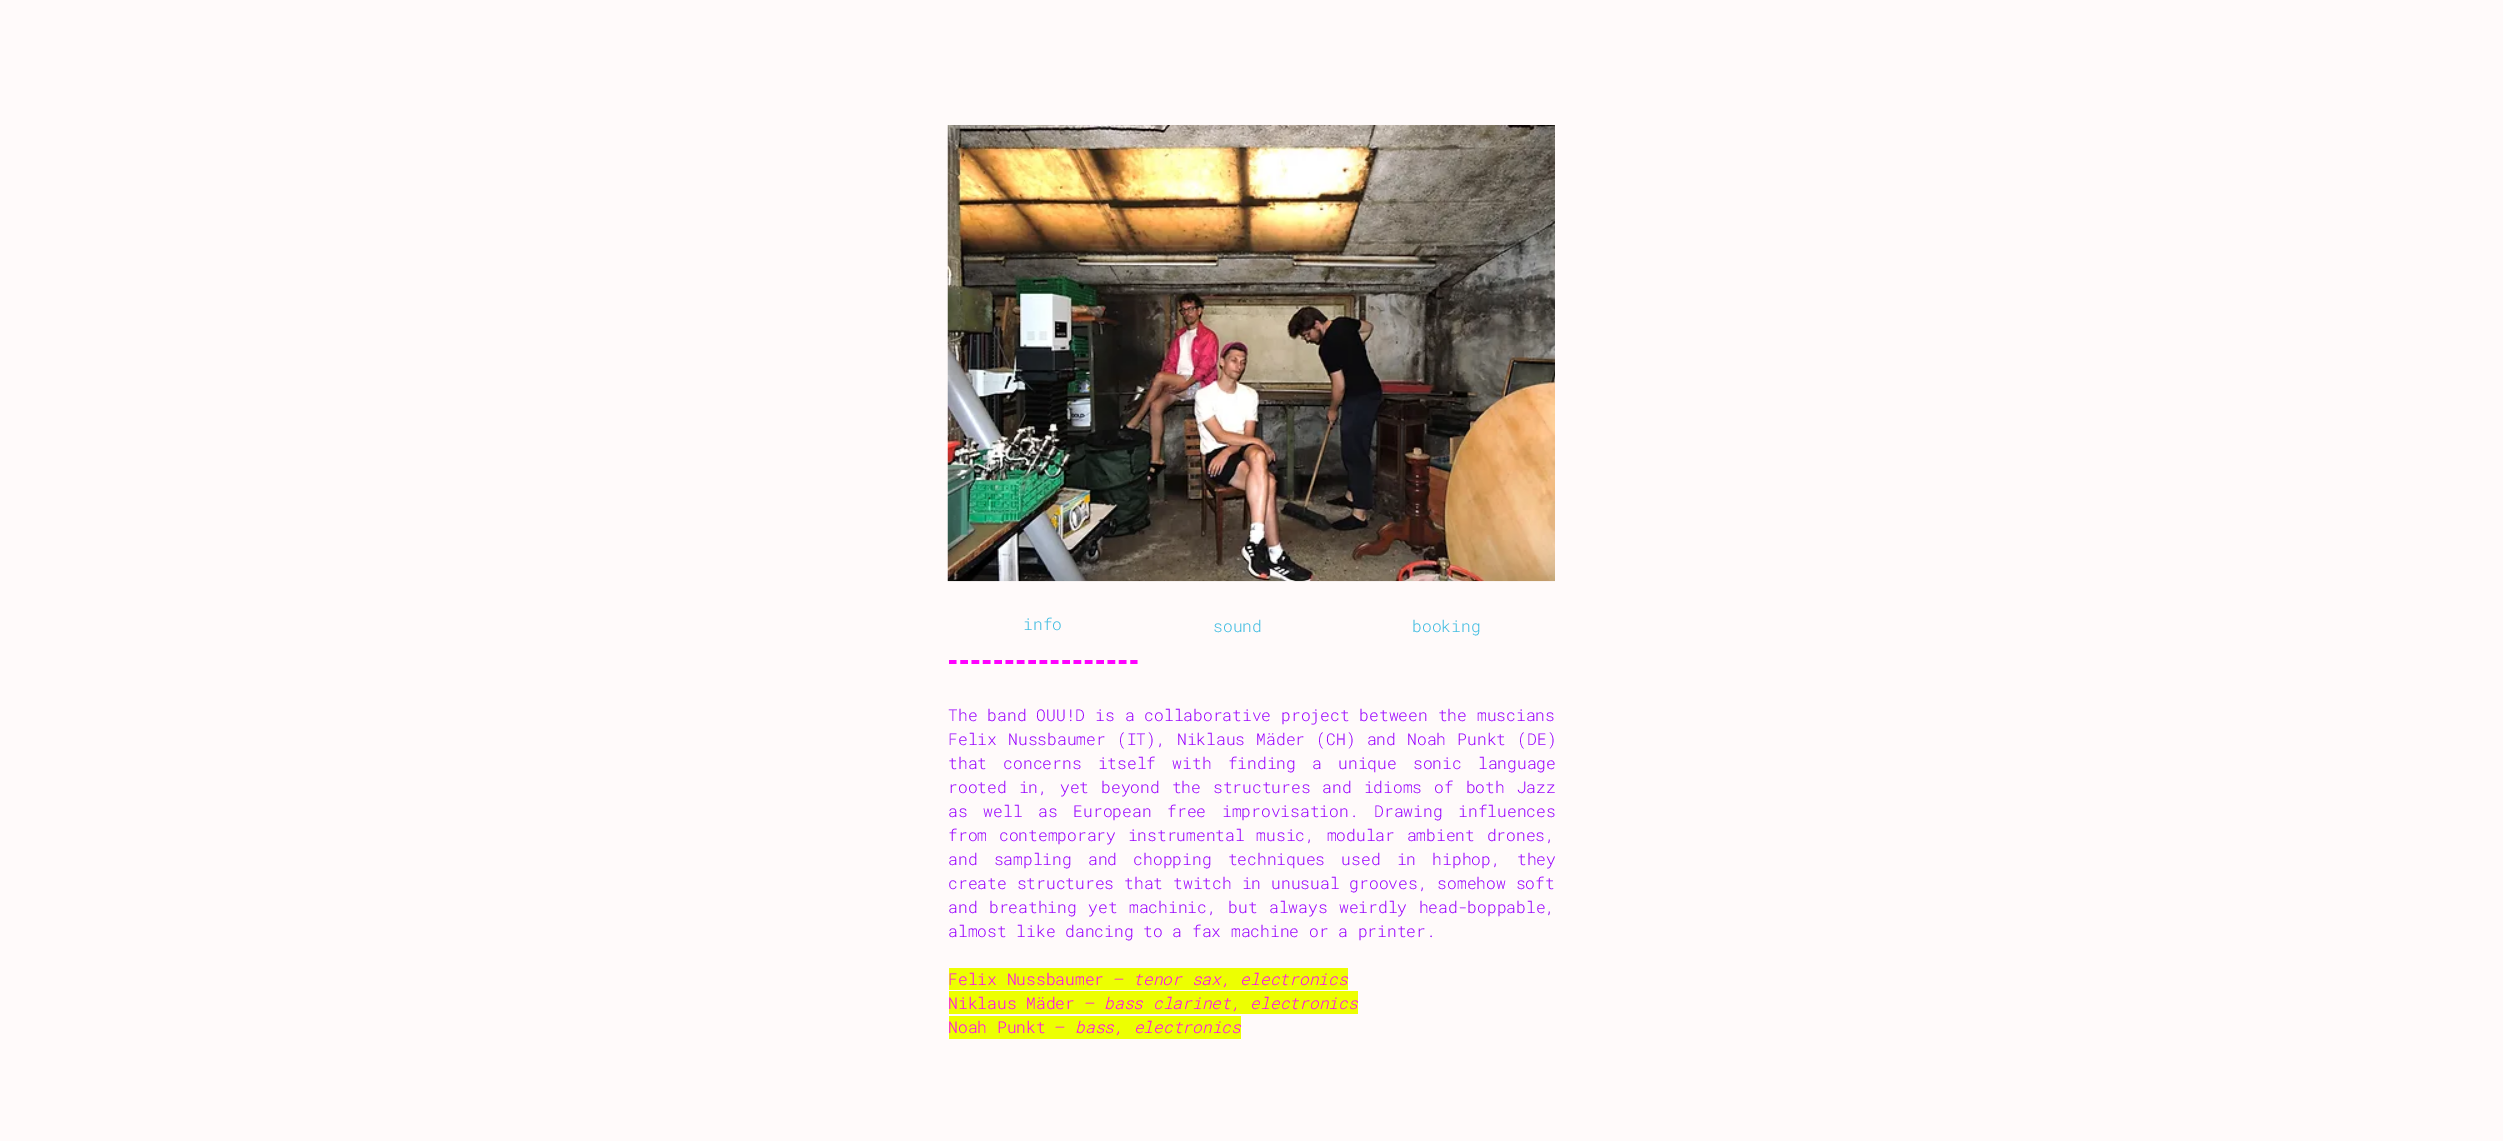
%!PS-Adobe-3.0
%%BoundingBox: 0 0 2503 1141
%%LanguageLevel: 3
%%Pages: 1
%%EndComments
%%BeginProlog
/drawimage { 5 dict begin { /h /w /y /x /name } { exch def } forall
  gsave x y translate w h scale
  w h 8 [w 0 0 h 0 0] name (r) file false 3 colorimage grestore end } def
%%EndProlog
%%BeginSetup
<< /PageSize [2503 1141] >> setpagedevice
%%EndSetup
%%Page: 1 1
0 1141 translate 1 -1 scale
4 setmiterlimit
1 0.98 0.98 setrgbcolor
0 0 2503 1141 rectfill
(images/1.raw) 947 125 608 457 drawimage
1 0 1 setrgbcolor
3.8 setlinewidth
[7.5 3.83] 0 setdash
newpath 949 662 moveto 1137.5 662 lineto stroke
0.929 1 0.004 setrgbcolor
949 968 399 22 rectfill
949 991 409 23 rectfill
949 1016 292 23 rectfill
/RobotoMono-Light [16.25 0 0 -16.25 0 0] selectfont
0.243 0.737 0.882 setrgbcolor
1023 630 moveto (info) show
1213 632 moveto (sound) show
1412 632 moveto (booking) show
0.6 0 1 setrgbcolor
948 721 moveto 0.25 0 32 (The band OUU!D is a collaborative project between the muscians) widthshow
948 745 moveto 1.5 0 32 (Felix Nussbaumer \(IT\), Niklaus Mäder \(CH\) and Noah Punkt \(DE\)) widthshow
948 769 moveto 6.5 0 32 (that concerns itself with finding a unique sonic language) widthshow
948 793 moveto 2.25 0 32 (rooted in, yet beyond the structures and idioms of both Jazz) widthshow
948 817 moveto 6 0 32 (as well as European free improvisation. Drawing influences) widthshow
948 841 moveto 2 0 32 (from contemporary instrumental music, modular ambient drones,) widthshow
948 865 moveto 6.5 0 32 (and sampling and chopping techniques used in hiphop, they) widthshow
948 889 moveto 0.25 0 32 (create structures that twitch in unusual grooves, somehow soft) widthshow
948 913 moveto 1.75 0 32 (and breathing yet machinic, but always weirdly head-boppable,) widthshow
948 937 moveto (almost like dancing to a fax machine or a printer.) show
1 0 1 setrgbcolor
948 985 moveto (Felix Nussbaumer –) show
/RobotoMono-LightItalic [16.25 0 0 -16.25 0 0] selectfont
1133 985 moveto (tenor sax, electronics) show
/RobotoMono-Light [16.25 0 0 -16.25 0 0] selectfont
948 1009 moveto (Niklaus Mäder –) show
/RobotoMono-LightItalic [16.25 0 0 -16.25 0 0] selectfont
1104 1009 moveto (bass clarinet, electronics) show
/RobotoMono-Light [16.25 0 0 -16.25 0 0] selectfont
948 1033 moveto (Noah Punkt –) show
/RobotoMono-LightItalic [16.25 0 0 -16.25 0 0] selectfont
1075 1033 moveto (bass, electronics) show
showpage
%%EOF
